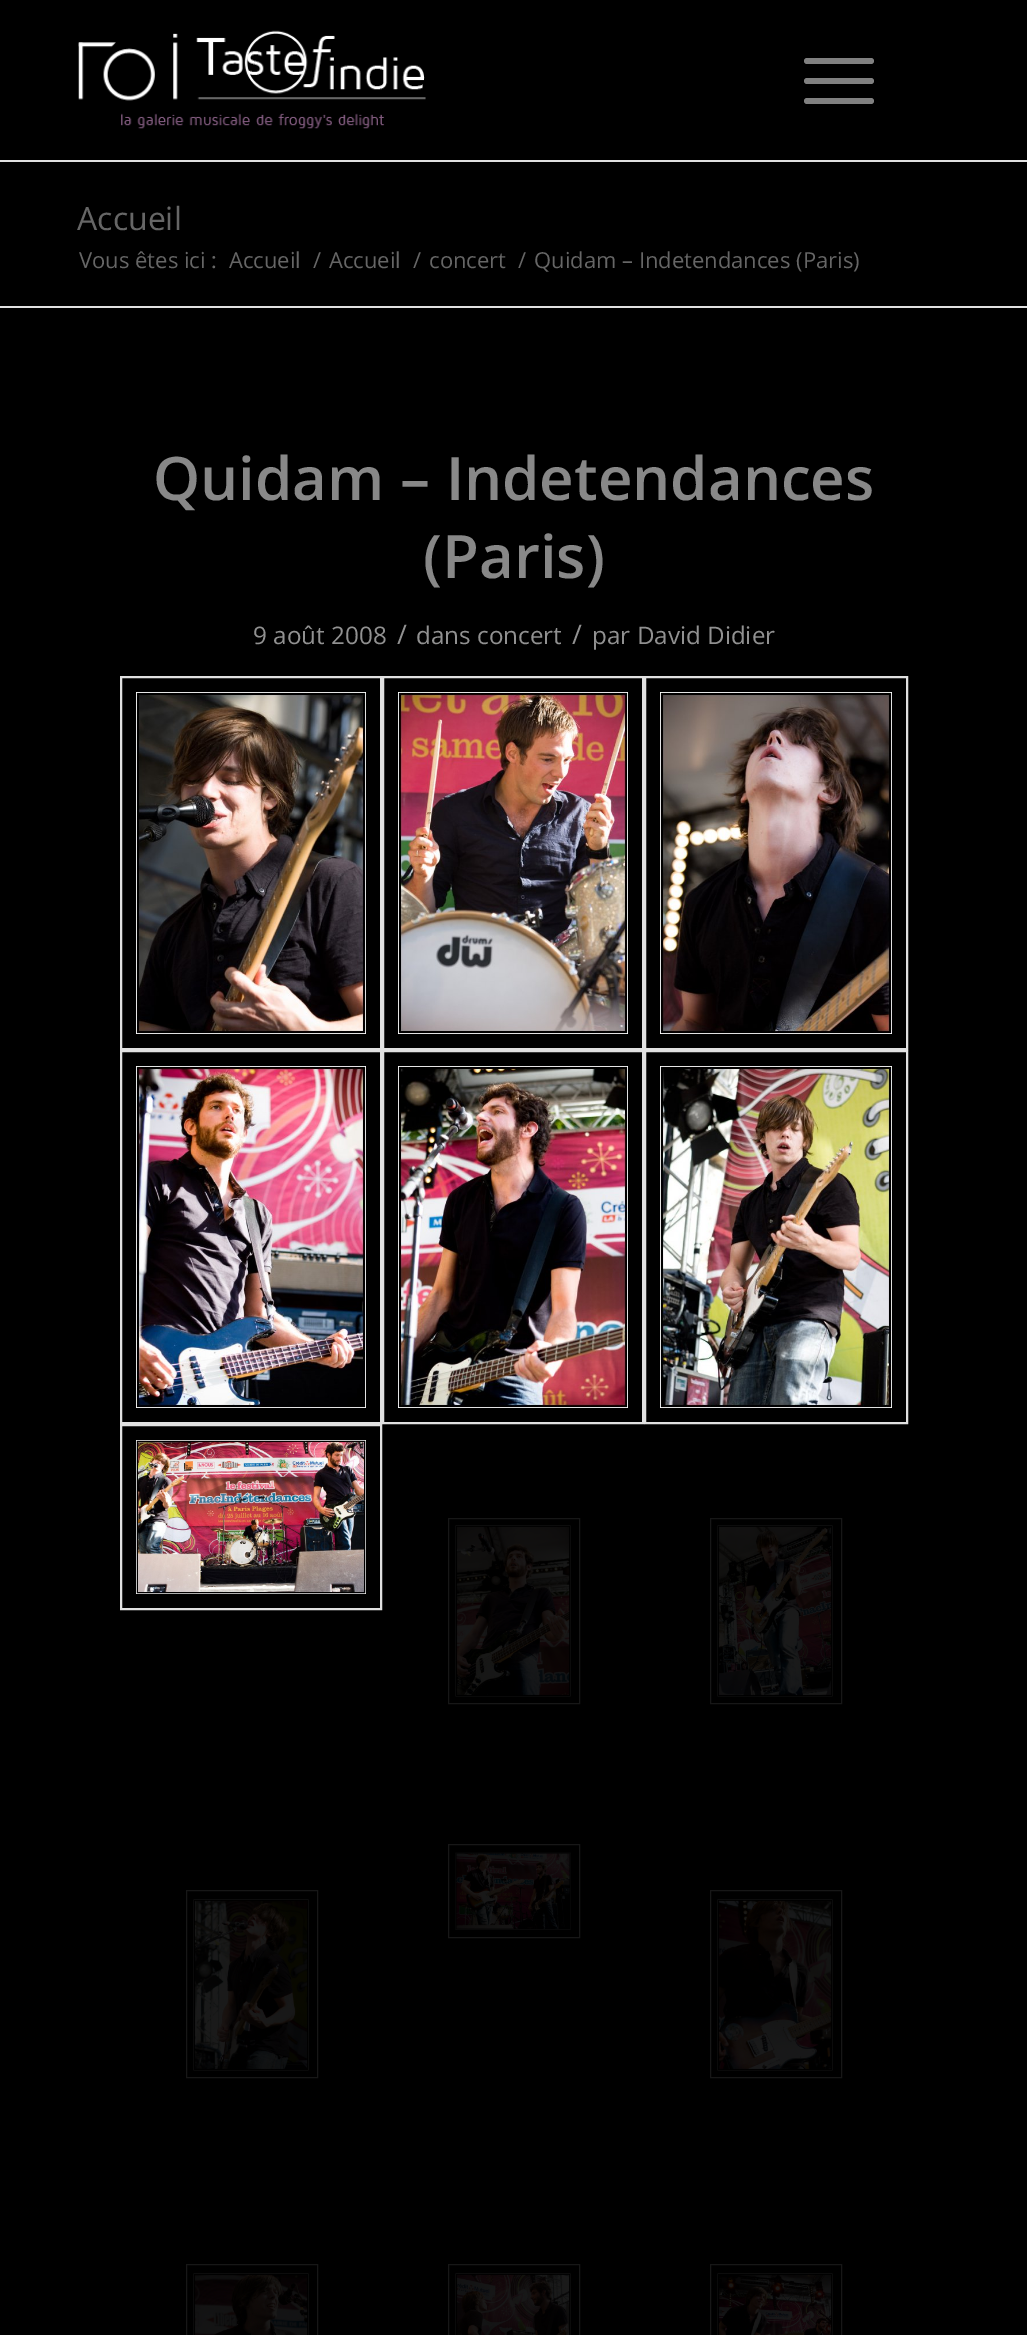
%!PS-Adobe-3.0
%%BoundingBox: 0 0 1027 2335
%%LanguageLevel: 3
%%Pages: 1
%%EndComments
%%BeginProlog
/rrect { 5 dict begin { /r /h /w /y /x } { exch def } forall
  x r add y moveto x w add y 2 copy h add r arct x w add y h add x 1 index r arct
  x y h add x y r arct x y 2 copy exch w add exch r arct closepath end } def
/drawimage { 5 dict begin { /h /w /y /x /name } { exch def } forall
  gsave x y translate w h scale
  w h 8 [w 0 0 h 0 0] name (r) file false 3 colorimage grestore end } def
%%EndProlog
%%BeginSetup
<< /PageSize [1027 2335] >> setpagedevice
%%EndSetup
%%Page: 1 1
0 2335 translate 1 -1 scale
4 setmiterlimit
0 setgray
0 0 1027 2335 rectfill
0.882 setgray
0 160 1027 2 rectfill
(images/1.raw) 78 30 348 99 drawimage
0.502 setgray
804 78 70 6 3 rrect fill
804 58 70 6 3 rrect fill
804 98 70 6 3 rrect fill
0.882 setgray
0 306 1027 2 rectfill
2 setlinewidth
121 677 260 372 rectstroke
(images/2.raw) 136 692 230 342 drawimage
383 677 260 372 rectstroke
(images/3.raw) 398 692 230 342 drawimage
645 677 262 372 rectstroke
(images/4.raw) 660 692 232 342 drawimage
121 1051 260 372 rectstroke
(images/5.raw) 136 1066 230 342 drawimage
383 1051 260 372 rectstroke
(images/6.raw) 398 1066 230 342 drawimage
645 1051 262 372 rectstroke
(images/7.raw) 660 1066 232 342 drawimage
121 1425 260 184 rectstroke
(images/8.raw) 136 1440 230 154 drawimage
0.09 setgray
1 setlinewidth
448.5 1518.5 131 185 rectstroke
(images/9.raw) 455 1525 116 172 drawimage
710.5 1518.5 131 185 rectstroke
(images/10.raw) 717 1525 116 172 drawimage
186.5 1890.5 131 187 rectstroke
(images/11.raw) 193 1899 116 172 drawimage
448.5 1844.5 131 93 rectstroke
(images/12.raw) 455 1852 116 78 drawimage
710.5 1890.5 131 187 rectstroke
(images/13.raw) 717 1899 116 172 drawimage
186.5 2264.5 131 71 rectstroke
(images/14.raw) 193 2273 116 62 drawimage
448.5 2264.5 131 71 rectstroke
(images/15.raw) 455 2273 116 62 drawimage
710.5 2264.5 131 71 rectstroke
(images/16.raw) 717 2273 116 62 drawimage
/OpenSans-Regular [32 0 0 -32 0 0] selectfont
0.4 setgray
77 230 moveto (Accueil) show
/OpenSans-Regular [22 0 0 -22 0 0] selectfont
79 268 moveto (Vous êtes ici :) show
229 268 moveto (Accueil) show
313 268 moveto (/) show
329 268 moveto (Accueil) show
413 268 moveto (/) show
429 268 moveto (concert) show
518 268 moveto (/) show
534 268 moveto (Quidam – Indetendances \(Paris\)) show
/OpenSans-SemiBold [60 0 0 -60 0 0] selectfont
0.533 setgray
153 500 moveto (Quidam – Indetendances) show
423 578 moveto (\(Paris\)) show
/OpenSans-Regular [24.25 0 0 -24.25 0 0] selectfont
0.569 setgray
253 644 moveto (9 août 2008) show
/OpenSans-Regular [27 0 0 -27 0 0] selectfont
397 644 moveto (/) show
/OpenSans-Regular [24.25 0 0 -24.25 0 0] selectfont
416 644 moveto (dans concert) show
/OpenSans-Regular [27 0 0 -27 0 0] selectfont
572 644 moveto (/) show
/OpenSans-Regular [24.25 0 0 -24.25 0 0] selectfont
592 644 moveto (par David Didier) show
showpage
%%EOF
